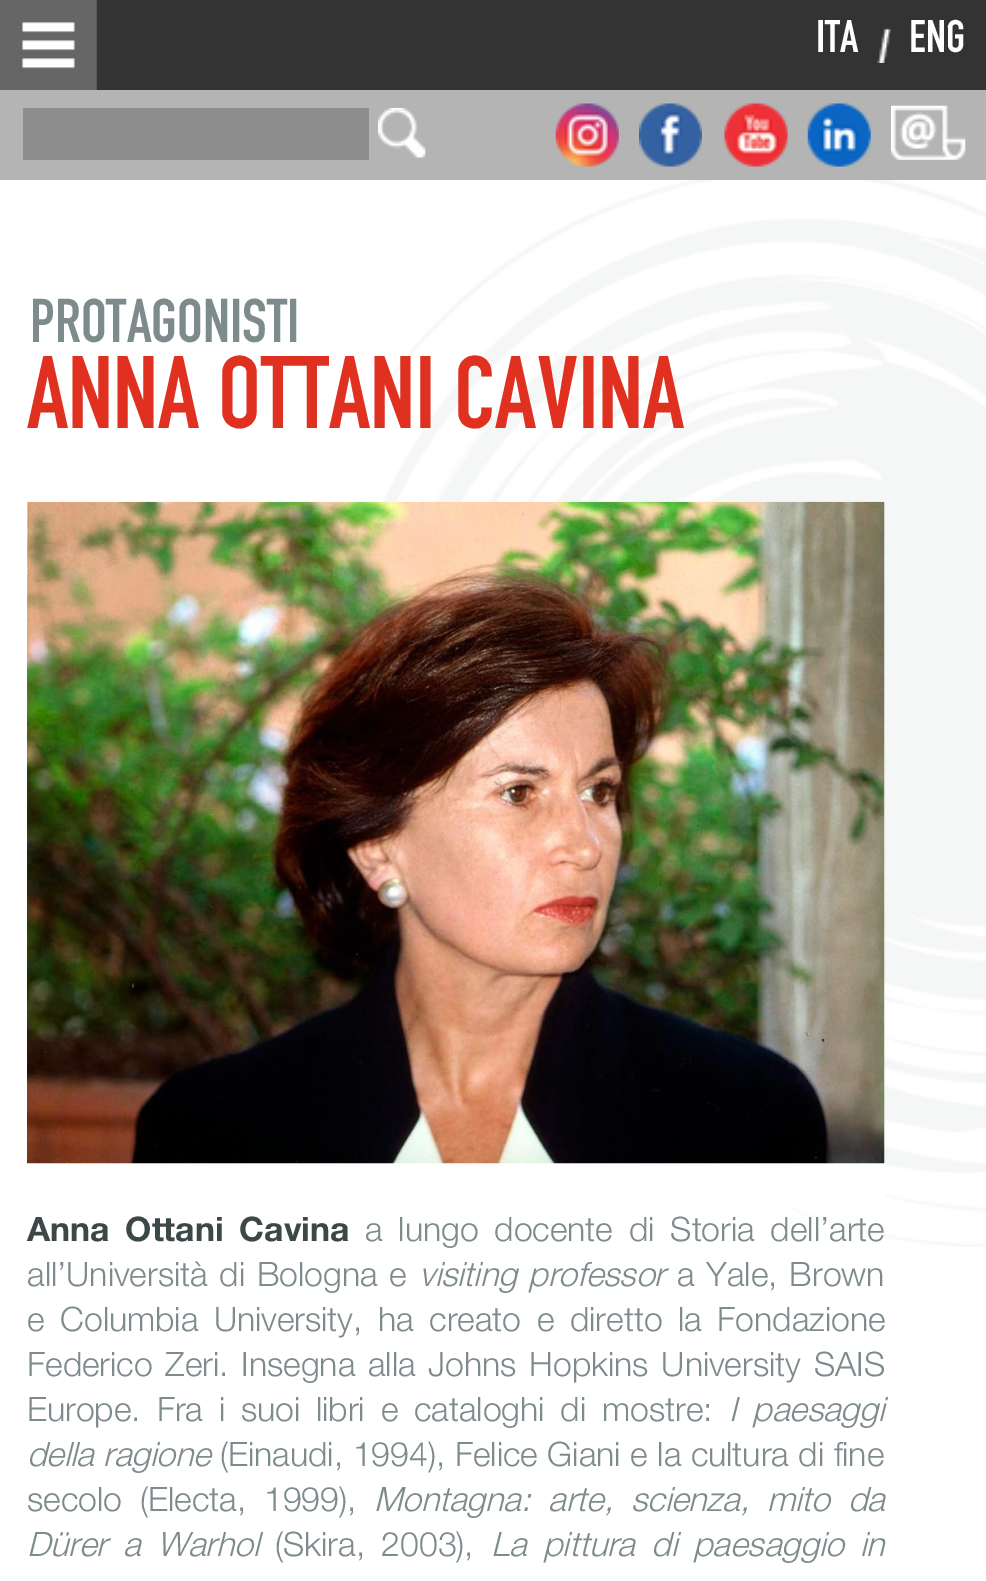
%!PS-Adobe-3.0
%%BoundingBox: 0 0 986 1581
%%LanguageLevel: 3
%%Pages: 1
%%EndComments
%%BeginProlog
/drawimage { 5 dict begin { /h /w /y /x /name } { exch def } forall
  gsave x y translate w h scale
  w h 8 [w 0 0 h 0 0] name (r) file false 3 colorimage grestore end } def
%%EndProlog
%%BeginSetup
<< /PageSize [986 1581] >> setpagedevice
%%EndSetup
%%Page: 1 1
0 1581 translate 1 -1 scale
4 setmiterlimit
1 setgray
0 0 986 1581 rectfill
0.2 setgray
96 0 890 90 rectfill
(images/1.raw) 0 0 97 90 drawimage
(images/2.raw) 877 28 14 35 drawimage
0.706 setgray
0 90 986 90 rectfill
0.553 setgray
23 108 346 52 rectfill
(images/3.raw) 378 108 48 50 drawimage
(images/4.raw) 555 103 64 64 drawimage
(images/5.raw) 639 103 63 64 drawimage
(images/6.raw) 724 103 64 64 drawimage
(images/7.raw) 807 103 64 64 drawimage
(images/8.raw) 891 105 75 55 drawimage
(images/9.raw) 335 180 651 1067 drawimage
1 setgray
698 1163 186 45 rectfill
(images/10.raw) 27 501 858 663 drawimage
/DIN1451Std-Regular [45 0 0 -45 0 0] selectfont
816 52 moveto (ITA) show
909 52 moveto (ENG) show
/DIN1451Std-Regular [60.75 0 0 -60.75 0 0] selectfont
0.494 0.545 0.549 setrgbcolor
30 342 moveto (PROTAGONISTI) show
/DIN1451Std-Regular [101.25 0 0 -101.25 0 0] selectfont
0.875 0.188 0.125 setrgbcolor
27 428 moveto (ANNA OTTANI CAVINA) show
/HelveticaNeue-Bold [33.75 0 0 -33.75 0 0] selectfont
0.235 0.278 0.278 setrgbcolor
27 1241 moveto 6.5 0 32 (Anna Ottani Cavina) widthshow
/HelveticaNeue-Light [33.75 0 0 -33.75 0 0] selectfont
0.494 0.545 0.549 setrgbcolor
365 1241 moveto 6.5 0 32 (a lungo docente di Storia dell’arte) widthshow
27 1286 moveto 2.5 0 32 (all’Università di Bologna e) widthshow
/HelveticaNeue-LightItalic [33.75 0 0 -33.75 0 0] selectfont
419 1286 moveto 2.5 0 32 (visiting professor) widthshow
/HelveticaNeue-Light [33.75 0 0 -33.75 0 0] selectfont
677 1286 moveto 2.5 0 32 (a Yale, Brown) widthshow
27 1331 moveto 6.25 0 32 (e Columbia University, ha creato e diretto la Fondazione) widthshow
27 1376 moveto 3.5 0 32 (Federico Zeri. Insegna alla Johns Hopkins University SAIS) widthshow
27 1421 moveto 6.5 0 32 (Europe. Fra i suoi libri e cataloghi di mostre:) widthshow
/HelveticaNeue-LightItalic [33.75 0 0 -33.75 0 0] selectfont
729 1421 moveto 6.5 0 32 (I paesaggi) widthshow
27 1466 moveto (della ragione) show
/HelveticaNeue-Light [33.75 0 0 -33.75 0 0] selectfont
220 1466 moveto 0.25 0 32 (\(Einaudi, 1994\), Felice Giani e la cultura di fine) widthshow
27 1511 moveto 8.5 0 32 (secolo \(Electa, 1999\),) widthshow
/HelveticaNeue-LightItalic [33.75 0 0 -33.75 0 0] selectfont
374 1511 moveto 8.5 0 32 (Montagna: arte, scienza, mito da) widthshow
27 1556 moveto 7 0 32 (Dürer a Warhol) widthshow
/HelveticaNeue-Light [33.75 0 0 -33.75 0 0] selectfont
275 1556 moveto 7 0 32 (\(Skira, 2003\),) widthshow
/HelveticaNeue-LightItalic [33.75 0 0 -33.75 0 0] selectfont
491 1556 moveto 7 0 32 (La pittura di paesaggio in) widthshow
showpage
%%EOF
